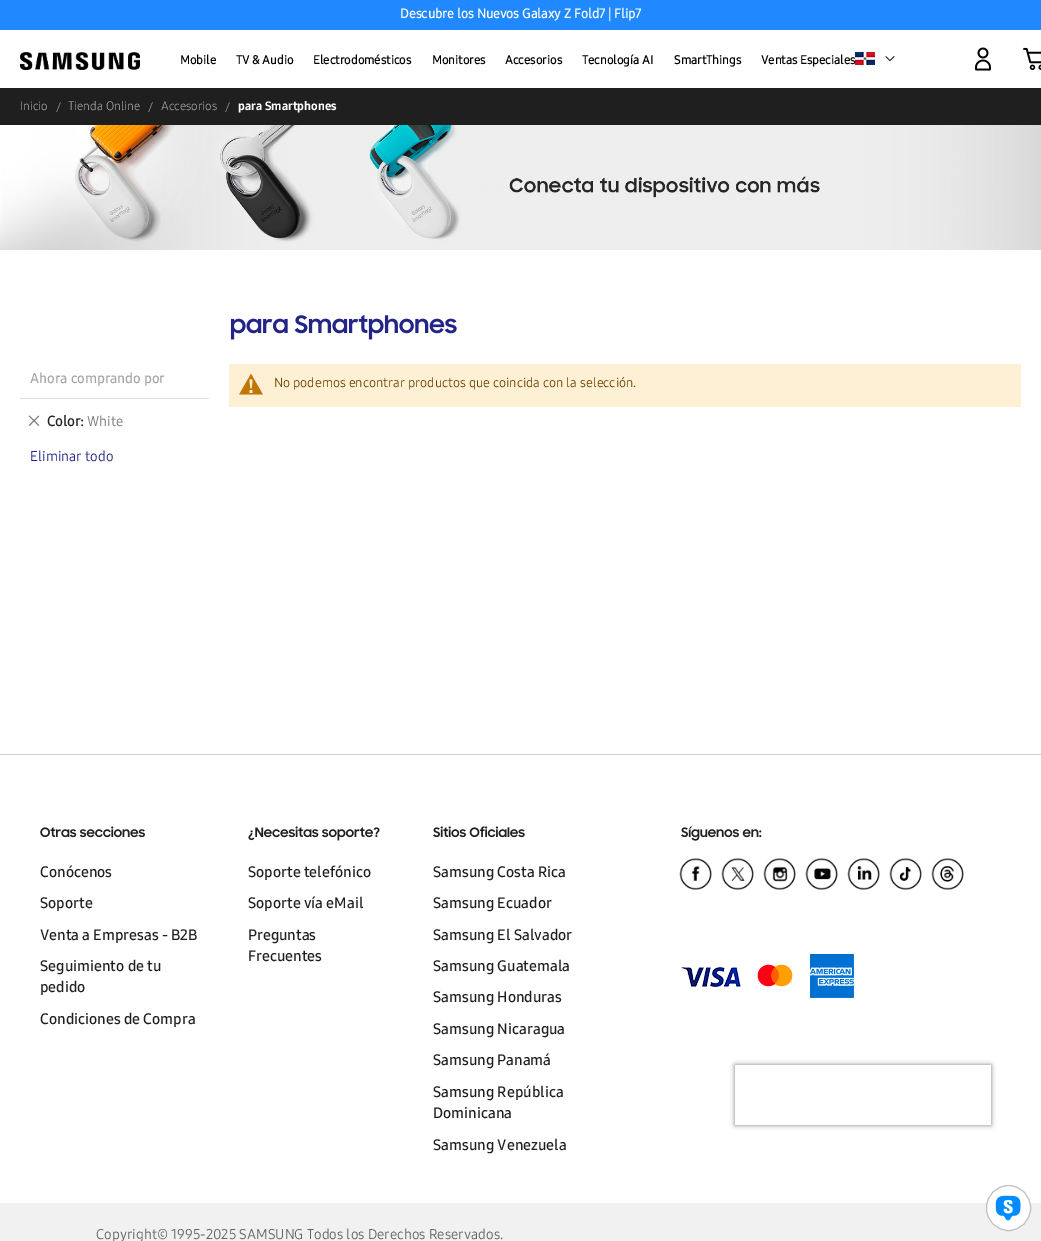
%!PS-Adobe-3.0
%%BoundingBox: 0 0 1041 1241
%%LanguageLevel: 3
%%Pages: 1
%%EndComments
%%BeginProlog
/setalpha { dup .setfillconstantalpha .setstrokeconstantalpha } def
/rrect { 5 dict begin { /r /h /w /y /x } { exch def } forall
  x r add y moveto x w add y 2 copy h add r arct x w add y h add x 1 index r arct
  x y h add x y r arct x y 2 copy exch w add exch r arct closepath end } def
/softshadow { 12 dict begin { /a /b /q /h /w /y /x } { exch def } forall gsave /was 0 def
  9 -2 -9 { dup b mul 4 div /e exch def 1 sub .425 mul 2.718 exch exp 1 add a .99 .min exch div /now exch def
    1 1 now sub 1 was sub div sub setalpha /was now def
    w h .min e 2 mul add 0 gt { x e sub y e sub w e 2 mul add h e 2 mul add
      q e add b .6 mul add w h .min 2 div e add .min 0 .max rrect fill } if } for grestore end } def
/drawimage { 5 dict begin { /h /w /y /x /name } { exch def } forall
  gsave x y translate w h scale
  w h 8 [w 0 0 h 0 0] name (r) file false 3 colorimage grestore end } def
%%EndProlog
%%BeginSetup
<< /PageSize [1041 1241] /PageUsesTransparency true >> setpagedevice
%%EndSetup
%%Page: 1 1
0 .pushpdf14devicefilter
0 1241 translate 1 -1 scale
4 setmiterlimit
1 setgray
0 0 1041 1241 rectfill
0.125 0.537 1 setrgbcolor
0 0 1041 30 rectfill
(images/1.raw) 20 52 120 18 drawimage
(images/2.raw) 855 52 20 13 drawimage
(images/3.raw) 885 56 10 6 drawimage
(images/4.raw) 975 47 16 24 drawimage
(images/5.raw) 1023 47 18 23 drawimage
0.122 setgray
0 88 1041 37 rectfill
(images/6.raw) 0 125 1041 125 drawimage
(images/7.raw) 230 314 227 26 drawimage
0.867 setgray
20 398 189 1 rectfill
(images/8.raw) 28 415 12 11 drawimage
0.992 0.941 0.835 setrgbcolor
229 364 792 43 rectfill
(images/9.raw) 239 374 24 21 drawimage
0.945 setgray
0 1203 1041 38 rectfill
1 setgray
986 1185 45 46 22.5 rrect fill
(images/10.raw) 995 1195 26 26 drawimage
0.745 setgray
986.5 1185.5 44 45 22 rrect stroke
0.816 setgray
0 754 1041 1 rectfill
(images/11.raw) 40 826 105 12 drawimage
(images/12.raw) 248 826 132 15 drawimage
(images/13.raw) 433 826 92 12 drawimage
(images/14.raw) 681 826 81 15 drawimage
(images/15.raw) 679 858 33 32 drawimage
(images/16.raw) 721 858 33 32 drawimage
(images/17.raw) 763 858 33 32 drawimage
(images/18.raw) 805 858 33 32 drawimage
(images/19.raw) 847 858 33 32 drawimage
(images/20.raw) 889 858 33 32 drawimage
(images/21.raw) 931 858 33 32 drawimage
(images/22.raw) 681 954 173 44 drawimage
gsave
newpath 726 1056 moveto 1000 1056 lineto 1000 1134 lineto 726 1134 lineto closepath 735 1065 moveto 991 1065 lineto 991 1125 lineto 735 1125 lineto closepath eoclip newpath
0.502 setgray
735 1065 256 60 0 2.5 1 softshadow
grestore
/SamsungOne-Bold [13 0 0 -13 0 0] selectfont
1 setgray
400 18 moveto (Descubre los Nuevos Galaxy Z Fold7 | Flip7) show
/SamsungOne-Bold [12 0 0 -12 0 0] selectfont
0 setgray
180 64 moveto (Mobile) show
236 64 moveto (TV & Audio) show
313 64 moveto (Electrodomésticos) show
432 64 moveto (Monitores) show
505 64 moveto (Accesorios) show
582 64 moveto (Tecnología AI) show
674 64 moveto (SmartThings) show
761 64 moveto (Ventas Especiales) show
/SamsungOne-Light [12 0 0 -12 0 0] selectfont
0.737 setgray
20 110 moveto (Inicio) show
56 111 moveto (/) show
68 110 moveto (Tienda Online) show
148 111 moveto (/) show
161 110 moveto (Accesorios) show
225 111 moveto (/) show
/SamsungOne-ExtraBold [12 0 0 -12 0 0] selectfont
1 setgray
238 110 moveto (para Smartphones) show
/SamsungOne-SemiBold [14 0 0 -14 0 0] selectfont
0.643 setgray
30 383 moveto (Ahora comprando por) show
/SamsungOne-Bold [14 0 0 -14 0 0] selectfont
0.122 setgray
47 426 moveto (Color:) show
/SamsungOne-Regular [14 0 0 -14 0 0] selectfont
0.459 setgray
87 426 moveto (White) show
0.133 0.141 0.533 setrgbcolor
30 461 moveto (Eliminar todo) show
/SamsungOne-Regular [13 0 0 -13 0 0] selectfont
0.435 0.267 0 setrgbcolor
274 387 moveto (No podemos encontrar productos que coincida con la selección.) show
/SamsungOne-SemiBold [15 0 0 -15 0 0] selectfont
0.122 setgray
40 877 moveto (Conócenos) show
40 908 moveto (Soporte) show
40 940 moveto (Venta a Empresas - B2B) show
40 971 moveto (Seguimiento de tu) show
40 992 moveto (pedido) show
40 1024 moveto (Condiciones de Compra) show
248 877 moveto (Soporte telefónico) show
248 908 moveto (Soporte vía eMail) show
248 940 moveto (Preguntas) show
248 961 moveto (Frecuentes) show
433 877 moveto (Samsung Costa Rica) show
433 908 moveto (Samsung Ecuador) show
433 940 moveto (Samsung El Salvador) show
433 971 moveto (Samsung Guatemala) show
433 1002 moveto (Samsung Honduras) show
433 1034 moveto (Samsung Nicaragua) show
433 1065 moveto (Samsung Panamá) show
433 1097 moveto (Samsung República) show
433 1118 moveto (Dominicana) show
433 1150 moveto (Samsung Venezuela) show
/SamsungOne-Regular [14 0 0 -14 0 0] selectfont
0.384 setgray
96 1239 moveto (Copyright© 1995-2025 SAMSUNG Todos los Derechos Reservados.) show
.poppdf14devicefilter showpage
%%EOF
